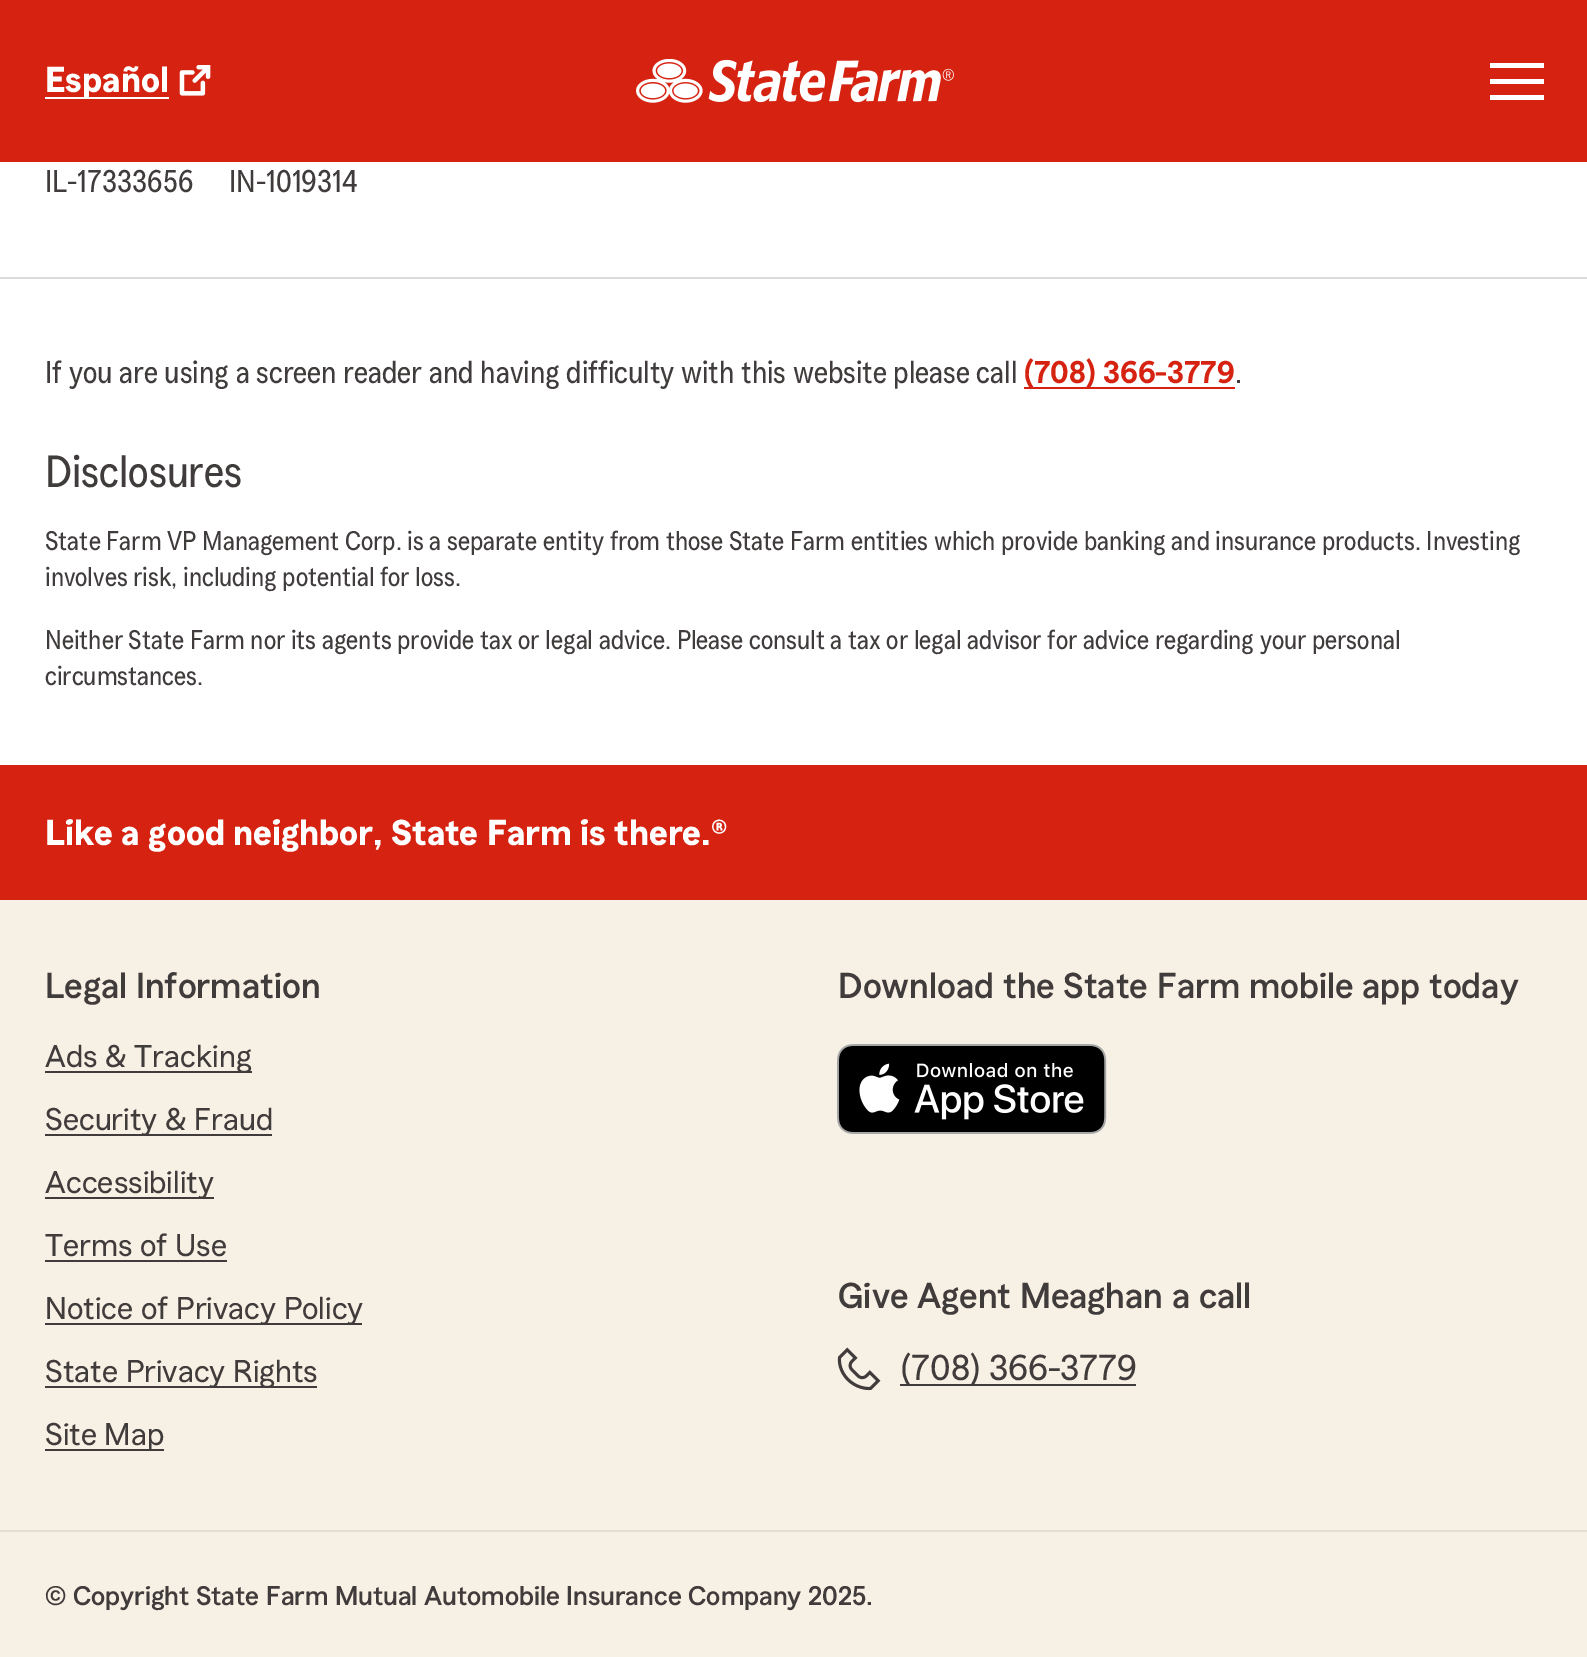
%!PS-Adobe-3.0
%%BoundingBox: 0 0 1587 1657
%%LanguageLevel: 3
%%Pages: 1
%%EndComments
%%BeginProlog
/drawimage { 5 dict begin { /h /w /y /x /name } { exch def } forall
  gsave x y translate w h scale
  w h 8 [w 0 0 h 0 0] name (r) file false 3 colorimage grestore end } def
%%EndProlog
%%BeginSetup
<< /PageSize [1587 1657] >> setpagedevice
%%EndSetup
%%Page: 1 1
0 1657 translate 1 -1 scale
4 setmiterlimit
1 setgray
0 0 1587 1657 rectfill
0.839 0.137 0.067 setrgbcolor
0 0 1587 162 rectfill
1 setgray
45 97 124 2 rectfill
(images/1.raw) 179 65 32 31 drawimage
(images/2.raw) 636 59 318 44 drawimage
1490 63 54 5 rectfill
1490 79 54 5 rectfill
1490 95 54 5 rectfill
0.863 setgray
0 277 1587 2 rectfill
0.839 0.137 0.067 setrgbcolor
1024 387 211 2 rectfill
0.969 0.941 0.894 setrgbcolor
0 900 1587 757 rectfill
0.839 0.137 0.067 setrgbcolor
0 765 1587 135 rectfill
0.251 0.235 0.235 setrgbcolor
45 1071 207 2 rectfill
45 1134 227 2 rectfill
45 1197 169 2 rectfill
45 1260 182 2 rectfill
45 1323 317 2 rectfill
45 1386 272 2 rectfill
45 1449 119 2 rectfill
(images/3.raw) 837 1044 270 90 drawimage
(images/4.raw) 837 1347 44 44 drawimage
900 1384 236 2 rectfill
0.898 0.871 0.827 setrgbcolor
0 1530 1587 2 rectfill
/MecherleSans-Bold [36 0 0 -36 0 0] selectfont
1 setgray
45 92 moveto (Español) show
/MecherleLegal-Regular [31.5 0 0 -31.5 0 0] selectfont
0.251 0.235 0.235 setrgbcolor
45 192 moveto (IL-17333656) show
229 192 moveto (IN-1019314) show
45 383 moveto (If you are using a screen reader and having difficulty with this website please call) show
/MecherleSans-SemiBold [31.5 0 0 -31.5 0 0] selectfont
0.839 0.137 0.067 setrgbcolor
1024 383 moveto (\(708\) 366-3779) show
/MecherleLegal-Regular [31.5 0 0 -31.5 0 0] selectfont
0.251 0.235 0.235 setrgbcolor
1235 383 moveto (.) show
/MecherleLegal-Regular [45 0 0 -45 0 0] selectfont
45 487 moveto (Disclosures) show
/MecherleLegal-Regular [27 0 0 -27 0 0] selectfont
45 550 moveto (State Farm VP Management Corp. is a separate entity from those State Farm entities which provide banking and insurance products. Investing) show
45 586 moveto (involves risk, including potential for loss.) show
45 649 moveto (Neither State Farm nor its agents provide tax or legal advice. Please consult a tax or legal advisor for advice regarding your personal) show
45 685 moveto (circumstances.) show
/MecherleSans-Bold [36 0 0 -36 0 0] selectfont
1 setgray
45 845 moveto (Like a good neighbor, State Farm is there.®) show
/MecherleSans-Medium [36 0 0 -36 0 0] selectfont
0.251 0.235 0.235 setrgbcolor
45 998 moveto (Legal Information) show
/MecherleSans-Regular [31.5 0 0 -31.5 0 0] selectfont
45 1067 moveto (Ads & Tracking) show
45 1130 moveto (Security & Fraud) show
45 1193 moveto (Accessibility) show
45 1256 moveto (Terms of Use) show
45 1319 moveto (Notice of Privacy Policy) show
45 1382 moveto (State Privacy Rights) show
45 1445 moveto (Site Map) show
/MecherleSans-Medium [36 0 0 -36 0 0] selectfont
838 998 moveto (Download the State Farm mobile app today) show
838 1308 moveto (Give Agent Meaghan a call) show
/MecherleSans-Regular [36 0 0 -36 0 0] selectfont
901 1380 moveto (\(708\) 366-3779) show
/MecherleSans-Medium [27 0 0 -27 0 0] selectfont
45 1605 moveto (© Copyright State Farm Mutual Automobile Insurance Company 2025.) show
showpage
%%EOF
